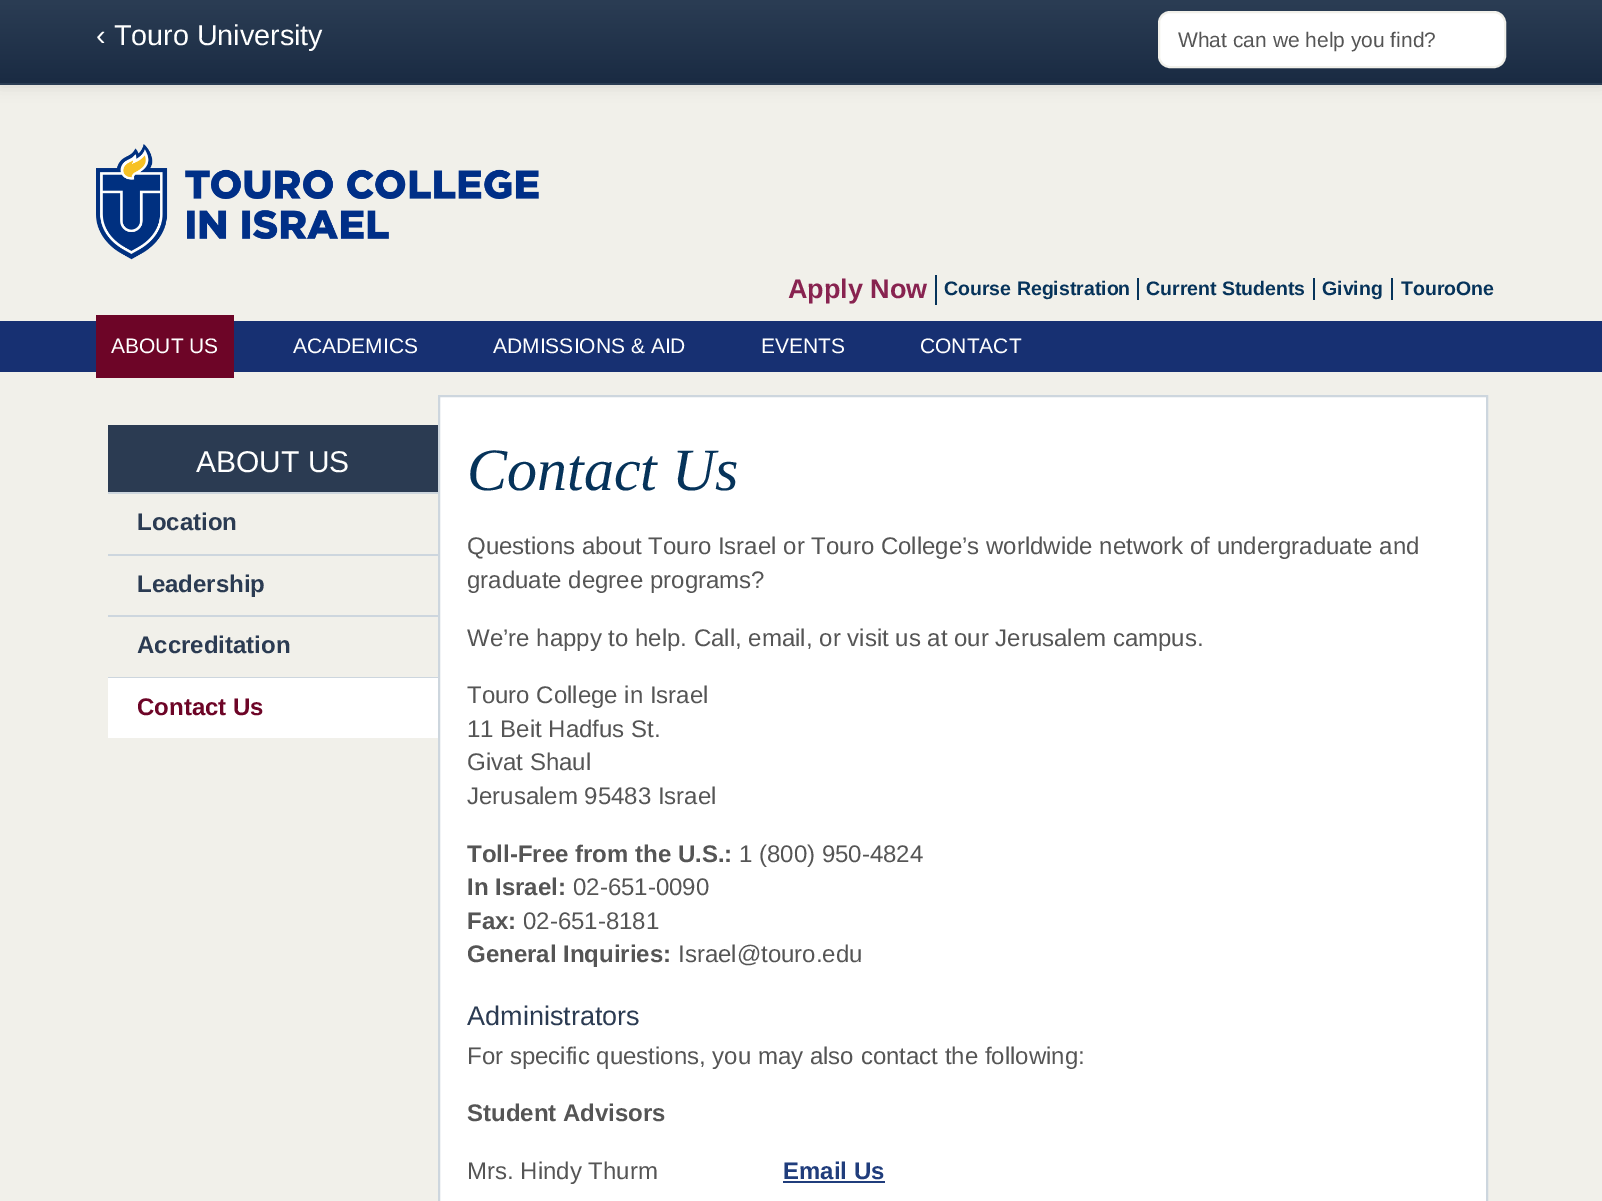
%!PS-Adobe-3.0
%%BoundingBox: 0 0 1602 1201
%%LanguageLevel: 3
%%Pages: 1
%%EndComments
%%BeginProlog
/setalpha { dup .setfillconstantalpha .setstrokeconstantalpha } def
/rrect { 5 dict begin { /r /h /w /y /x } { exch def } forall
  x r add y moveto x w add y 2 copy h add r arct x w add y h add x 1 index r arct
  x y h add x y r arct x y 2 copy exch w add exch r arct closepath end } def
/softshadow { 12 dict begin { /a /b /q /h /w /y /x } { exch def } forall gsave /was 0 def
  9 -2 -9 { dup b mul 4 div /e exch def 1 sub .425 mul 2.718 exch exp 1 add a .99 .min exch div /now exch def
    1 1 now sub 1 was sub div sub setalpha /was now def
    w h .min e 2 mul add 0 gt { x e sub y e sub w e 2 mul add h e 2 mul add
      q e add b .6 mul add w h .min 2 div e add .min 0 .max rrect fill } if } for grestore end } def
/drawimage { 5 dict begin { /h /w /y /x /name } { exch def } forall
  gsave x y translate w h scale
  w h 8 [w 0 0 h 0 0] name (r) file false 3 colorimage grestore end } def
%%EndProlog
%%BeginSetup
<< /PageSize [1602 1201] /PageUsesTransparency true >> setpagedevice
%%EndSetup
%%Page: 1 1
0 .pushpdf14devicefilter
0 1201 translate 1 -1 scale
4 setmiterlimit
0.945 0.941 0.918 setrgbcolor
0 0 1602 1201 rectfill
0 setgray
0 2 1602 84 0 7.5 0.1 softshadow
gsave newpath 0 0 moveto 1602 0 lineto 1602 83 lineto 0 83 lineto closepath clip newpath
<< /ShadingType 2 /ColorSpace /DeviceRGB /Coords [801 0 801 83] /Extend [true true] /Function << /FunctionType 2 /Domain [0 1] /C0 [0.169 0.239 0.329] /C1 [0.102 0.169 0.263] /N 1 >> >> shfill grestore
0.169 0.239 0.329 setrgbcolor
0 83 1602 2 rectfill
1 setgray
1159 12 346 55 11 rrect gsave fill grestore
0.945 0.941 0.918 setrgbcolor
2 setlinewidth
stroke
(images/1.raw) 96 144 443 116 drawimage
0.024 0.2 0.353 setrgbcolor
935 275 2 30 rectfill
1137 278 2 22 rectfill
1313 278 2 22 rectfill
1391 278 2 22 rectfill
0.09 0.188 0.447 setrgbcolor
0 321 1602 51 rectfill
0.427 0.02 0.153 setrgbcolor
96 315 138 63 rectfill
0.169 0.231 0.322 setrgbcolor
108 425 330 67 rectfill
0.804 0.839 0.871 setrgbcolor
108 492 330 2 rectfill
108 554 330 2 rectfill
108 615 330 2 rectfill
108 677 330 1 rectfill
1 setgray
108 678 330 60 rectfill
newpath 439 396 moveto 1487 396 lineto 1487 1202 lineto 439 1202 lineto closepath gsave fill grestore
0.804 0.839 0.871 setrgbcolor
stroke
0.125 0.239 0.486 setrgbcolor
783 1181 102 2 rectfill
/LiberationSans-Regular [28.75 0 0 -28.75 0 0] selectfont
1 setgray
96 45 moveto (‹ Touro University) show
/LiberationSans-Regular [21 0 0 -21 0 0] selectfont
0.333 setgray
1178 47 moveto (What can we help you find?) show
/LiberationSans-Bold [27 0 0 -27 0 0] selectfont
0.533 0.137 0.314 setrgbcolor
788 298 moveto (Apply Now) show
/LiberationSans-Bold [19.5 0 0 -19.5 0 0] selectfont
0.024 0.2 0.353 setrgbcolor
944 295 moveto (Course Registration) show
1146 295 moveto (Current Students) show
1322 295 moveto (Giving) show
1401 295 moveto (TouroOne) show
/LiberationSans-Regular [21 0 0 -21 0 0] selectfont
1 setgray
111 353 moveto (ABOUT US) show
293 353 moveto (ACADEMICS) show
493 353 moveto (ADMISSIONS & AID) show
761 353 moveto (EVENTS) show
920 353 moveto (CONTACT) show
/LiberationSans-Regular [30 0 0 -30 0 0] selectfont
196 472 moveto (ABOUT US) show
/LiberationSans-Bold [24 0 0 -24 0 0] selectfont
0.169 0.231 0.322 setrgbcolor
137 530 moveto (Location) show
137 592 moveto (Leadership) show
137 653 moveto (Accreditation) show
0.427 0.02 0.153 setrgbcolor
137 715 moveto (Contact Us) show
/LiberationSerif-Italic [60 0 0 -60 0 0] selectfont
0.024 0.2 0.353 setrgbcolor
467 490 moveto (Contact Us) show
/LiberationSans-Regular [24 0 0 -24 0 0] selectfont
0.333 setgray
467 554 moveto (Questions about Touro Israel or Touro College’s worldwide network of undergraduate and) show
467 588 moveto (graduate degree programs?) show
467 646 moveto (We’re happy to help. Call, email, or visit us at our Jerusalem campus.) show
467 703 moveto (Touro College in Israel) show
467 737 moveto (11 Beit Hadfus St.) show
467 770 moveto (Givat Shaul) show
467 804 moveto (Jerusalem 95483 Israel) show
/LiberationSans-Bold [24 0 0 -24 0 0] selectfont
467 862 moveto (Toll-Free from the U.S.:) show
/LiberationSans-Regular [24 0 0 -24 0 0] selectfont
739 862 moveto (1 \(800\) 950-4824) show
/LiberationSans-Bold [24 0 0 -24 0 0] selectfont
467 895 moveto (In Israel:) show
/LiberationSans-Regular [24 0 0 -24 0 0] selectfont
573 895 moveto (02-651-0090) show
/LiberationSans-Bold [24 0 0 -24 0 0] selectfont
467 929 moveto (Fax:) show
/LiberationSans-Regular [24 0 0 -24 0 0] selectfont
523 929 moveto (02-651-8181) show
/LiberationSans-Bold [24 0 0 -24 0 0] selectfont
467 962 moveto (General Inquiries:) show
/LiberationSans-Regular [24 0 0 -24 0 0] selectfont
678 962 moveto (Israel@touro.edu) show
/LiberationSans-Regular [27 0 0 -27 0 0] selectfont
0.169 0.231 0.322 setrgbcolor
467 1025 moveto (Administrators) show
/LiberationSans-Regular [24 0 0 -24 0 0] selectfont
0.333 setgray
467 1064 moveto (For specific questions, you may also contact the following:) show
/LiberationSans-Bold [24 0 0 -24 0 0] selectfont
467 1121 moveto (Student Advisors) show
/LiberationSans-Regular [24 0 0 -24 0 0] selectfont
467 1179 moveto (Mrs. Hindy Thurm) show
/LiberationSans-Bold [24 0 0 -24 0 0] selectfont
0.125 0.239 0.486 setrgbcolor
783 1179 moveto (Email Us) show
.poppdf14devicefilter showpage
%%EOF
